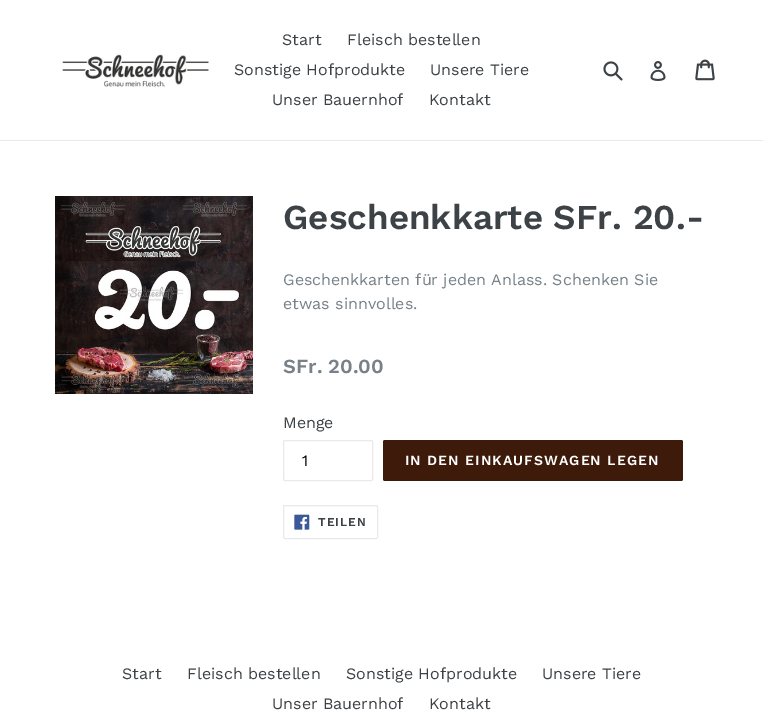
%!PS-Adobe-3.0
%%BoundingBox: 0 0 763 726
%%LanguageLevel: 3
%%Pages: 1
%%EndComments
%%BeginProlog
/rrect { 5 dict begin { /r /h /w /y /x } { exch def } forall
  x r add y moveto x w add y 2 copy h add r arct x w add y h add x 1 index r arct
  x y h add x y r arct x y 2 copy exch w add exch r arct closepath end } def
/drawimage { 5 dict begin { /h /w /y /x /name } { exch def } forall
  gsave x y translate w h scale
  w h 8 [w 0 0 h 0 0] name (r) file false 3 colorimage grestore end } def
%%EndProlog
%%BeginSetup
<< /PageSize [763 726] >> setpagedevice
%%EndSetup
%%Page: 1 1
0 726 translate 1 -1 scale
4 setmiterlimit
1 setgray
0 0 763 726 rectfill
0.91 0.914 0.922 setrgbcolor
0 140 763 1 rectfill
(images/1.raw) 62 53 147 34 drawimage
(images/2.raw) 603 61 20 20 drawimage
(images/3.raw) 650 61 16 20 drawimage
(images/4.raw) 695 59 20 22 drawimage
(images/5.raw) 55 196 198 198 drawimage
283.5 440.5 89 40 1.5 rrect stroke
0.243 0.102 0.039 setrgbcolor
383 440 300 41 2 rrect fill
0.91 0.914 0.922 setrgbcolor
283.5 505.5 94 33 1.5 rrect stroke
(images/6.raw) 294 514 16 16 drawimage
/WorkSans-Regular [16 0 0 -16 0 0] selectfont
0.239 0.259 0.275 setrgbcolor
282 45 moveto (Start) show
347 45 moveto (Fleisch bestellen) show
234 75 moveto (Sonstige Hofprodukte) show
430 75 moveto (Unsere Tiere) show
272 105 moveto (Unser Bauernhof) show
429 105 moveto (Kontakt) show
/WorkSans-SemiBold [35 0 0 -35 0 0] selectfont
283 229 moveto (Geschenkkarte SFr. 20.-) show
/WorkSans-Regular [16 0 0 -16 0 0] selectfont
0.471 0.506 0.533 setrgbcolor
283 285 moveto (Geschenkkarten für jeden Anlass. Schenken Sie) show
283 309 moveto (etwas sinnvolles.) show
/WorkSans-SemiBold [20 0 0 -20 0 0] selectfont
283 373 moveto (SFr. 20.00) show
/WorkSans-Regular [16 0 0 -16 0 0] selectfont
0.239 0.259 0.275 setrgbcolor
283 428 moveto (Menge) show
0 setgray
302 466 moveto (1) show
/WorkSans-SemiBold [14 0 0 -14 0 0] selectfont
1 setgray
405 465 moveto 1.1 0 (IN DEN EINKAUFSWAGEN LEGEN) ashow
/WorkSans-SemiBold [12 0 0 -12 0 0] selectfont
0.239 0.259 0.275 setrgbcolor
318 526 moveto 1 0 (TEILEN) ashow
/WorkSans-Regular [16 0 0 -16 0 0] selectfont
122 679 moveto (Start) show
187 679 moveto (Fleisch bestellen) show
346 679 moveto (Sonstige Hofprodukte) show
542 679 moveto (Unsere Tiere) show
272 709 moveto (Unser Bauernhof) show
429 709 moveto (Kontakt) show
showpage
%%EOF
